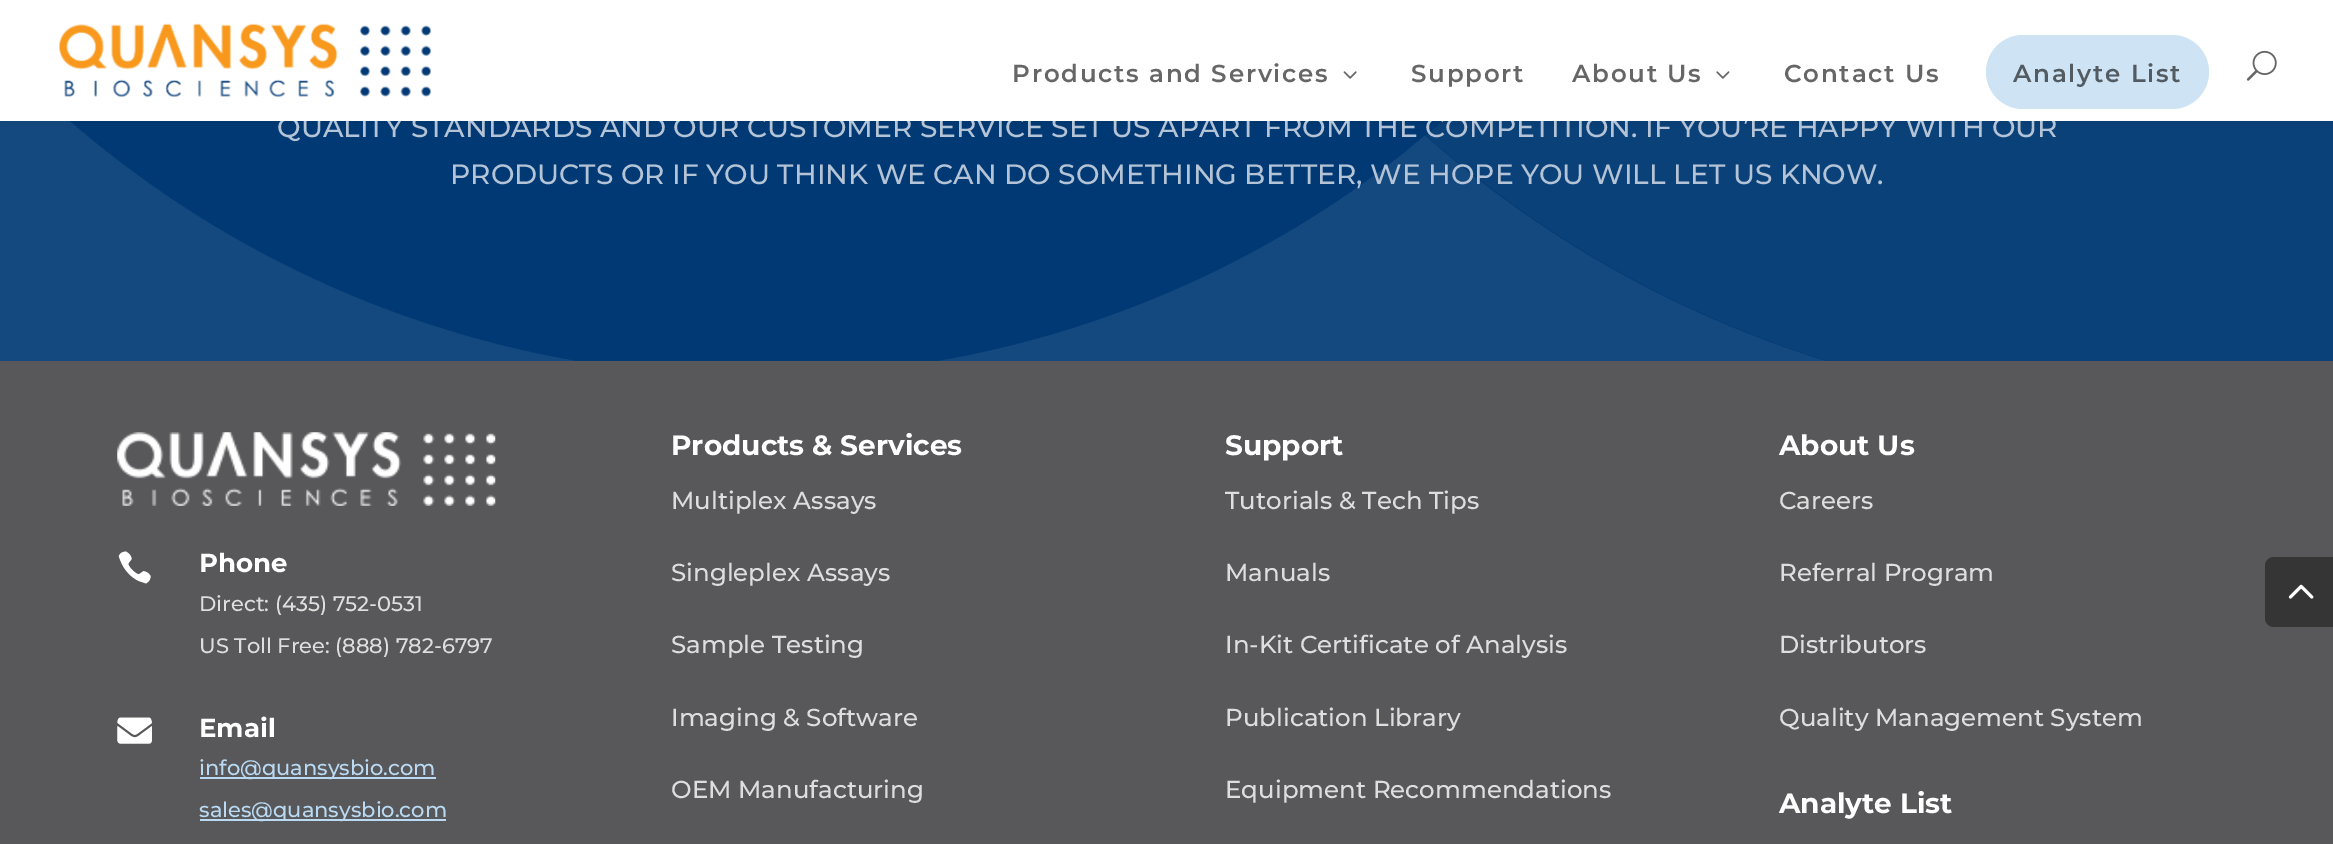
%!PS-Adobe-3.0
%%BoundingBox: 0 0 2333 844
%%LanguageLevel: 3
%%Pages: 1
%%EndComments
%%BeginProlog
/setalpha { dup .setfillconstantalpha .setstrokeconstantalpha } def
/rrect { 5 dict begin { /r /h /w /y /x } { exch def } forall
  x r add y moveto x w add y 2 copy h add r arct x w add y h add x 1 index r arct
  x y h add x y r arct x y 2 copy exch w add exch r arct closepath end } def
/softshadow { 12 dict begin { /a /b /q /h /w /y /x } { exch def } forall gsave /was 0 def
  9 -2 -9 { dup b mul 4 div /e exch def 1 sub .425 mul 2.718 exch exp 1 add a .99 .min exch div /now exch def
    1 1 now sub 1 was sub div sub setalpha /was now def
    w h .min e 2 mul add 0 gt { x e sub y e sub w e 2 mul add h e 2 mul add
      q e add b .6 mul add w h .min 2 div e add .min 0 .max rrect fill } if } for grestore end } def
/drawimage { 5 dict begin { /h /w /y /x /name } { exch def } forall
  gsave x y translate w h scale
  w h 8 [w 0 0 h 0 0] name (r) file false 3 colorimage grestore end } def
%%EndProlog
%%BeginSetup
<< /PageSize [2333 844] /PageUsesTransparency true >> setpagedevice
%%EndSetup
%%Page: 1 1
0 .pushpdf14devicefilter
0 844 translate 1 -1 scale
4 setmiterlimit
0 0.224 0.455 setrgbcolor
0 0 2333 844 rectfill
(images/5.raw) 0 121 2333 240 drawimage
0 setgray
0 0 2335 121 0 6 0.1 softshadow
0.345 0.345 0.353 setrgbcolor
0 361 2333 483 rectfill
(images/6.raw) 117 432 379 74 drawimage
(images/7.raw) 118 551 33 33 drawimage
(images/8.raw) 117 717 35 27 drawimage
0.729 0.855 0.953 setrgbcolor
200 777 236 2 rectfill
200 819 246 2 rectfill
0.208 0.208 0.212 setrgbcolor
newpath 2274 557 moveto 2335 557 lineto 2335 627 lineto 2274 627 lineto 2269 627 2265 623 2265 618 curveto 2265 566 lineto 2265 561 2269 557 2274 557 curveto closepath fill
(images/9.raw) 2288 584 26 15 drawimage
/Montserrat-Medium [28 0 0 -28 0 0] selectfont
0.706 0.769 0.839 setrgbcolor
277 137 moveto (QUALITY STANDARDS AND OUR CUSTOMER SERVICE SET US APART FROM THE COMPETITION. IF YOU’RE HAPPY WITH OUR) show
1 setgray
0 0 2333 121 rectfill
(images/4.raw) 2246 50 31 31 drawimage
0.808 0.89 0.953 setrgbcolor
1986 35 223 74 37 rrect fill
/Montserrat-SemiBold [24.5 0 0 -24.5 0 0] selectfont
0.322 0.357 0.38 setrgbcolor
2013 82 moveto 1.75 0 (Analyte List) ashow
0.4 setgray
1784 82 moveto 1.75 0 (Contact Us) ashow
(images/3.raw) 1716 71 14 8 drawimage
1572 82 moveto 1.75 0 (About Us) ashow
1411 82 moveto 1.75 0 (Support) ashow
(images/2.raw) 1343 71 14 8 drawimage
1012 82 moveto 1.75 0 (Products and Services) ashow
(images/1.raw) 59 23 372 74 drawimage
/Montserrat-Medium [28 0 0 -28 0 0] selectfont
0.706 0.769 0.839 setrgbcolor
450 184 moveto (PRODUCTS OR IF YOU THINK WE CAN DO SOMETHING BETTER, WE HOPE YOU WILL LET US KNOW.) show
/Montserrat-Bold [26 0 0 -26 0 0] selectfont
1 setgray
199 572 moveto (Phone) show
/Montserrat-Medium [21 0 0 -21 0 0] selectfont
0.871 setgray
199 611 moveto (Direct: \(435\) 752-0531) show
199 653 moveto (US Toll Free: \(888\) 782-6797) show
/Montserrat-Bold [26 0 0 -26 0 0] selectfont
1 setgray
199 737 moveto (Email) show
/Montserrat-Medium [21 0 0 -21 0 0] selectfont
0.729 0.855 0.953 setrgbcolor
199 775 moveto (info@quansysbio.com) show
199 817 moveto (sales@quansysbio.com) show
/Montserrat-Bold [28 0 0 -28 0 0] selectfont
1 setgray
671 455 moveto (Products & Services) show
/Montserrat-Medium [24.5 0 0 -24.5 0 0] selectfont
0.871 setgray
671 509 moveto (Multiplex Assays) show
671 581 moveto (Singleplex Assays) show
671 653 moveto (Sample Testing) show
671 726 moveto (Imaging & Software) show
671 798 moveto (OEM Manufacturing) show
/Montserrat-Bold [28 0 0 -28 0 0] selectfont
1 setgray
1225 455 moveto (Support) show
/Montserrat-Medium [24.5 0 0 -24.5 0 0] selectfont
0.871 setgray
1225 509 moveto (Tutorials & Tech Tips) show
1225 581 moveto (Manuals) show
1225 653 moveto (In-Kit Certificate of Analysis) show
1225 726 moveto (Publication Library) show
1225 798 moveto (Equipment Recommendations) show
/Montserrat-Bold [28 0 0 -28 0 0] selectfont
1 setgray
1779 455 moveto (About Us) show
/Montserrat-Medium [24.5 0 0 -24.5 0 0] selectfont
0.871 setgray
1779 509 moveto (Careers) show
1779 581 moveto (Referral Program) show
1779 653 moveto (Distributors) show
1779 726 moveto (Quality Management System) show
/Montserrat-Bold [28 0 0 -28 0 0] selectfont
1 setgray
1779 813 moveto (Analyte List) show
.poppdf14devicefilter showpage
%%EOF
